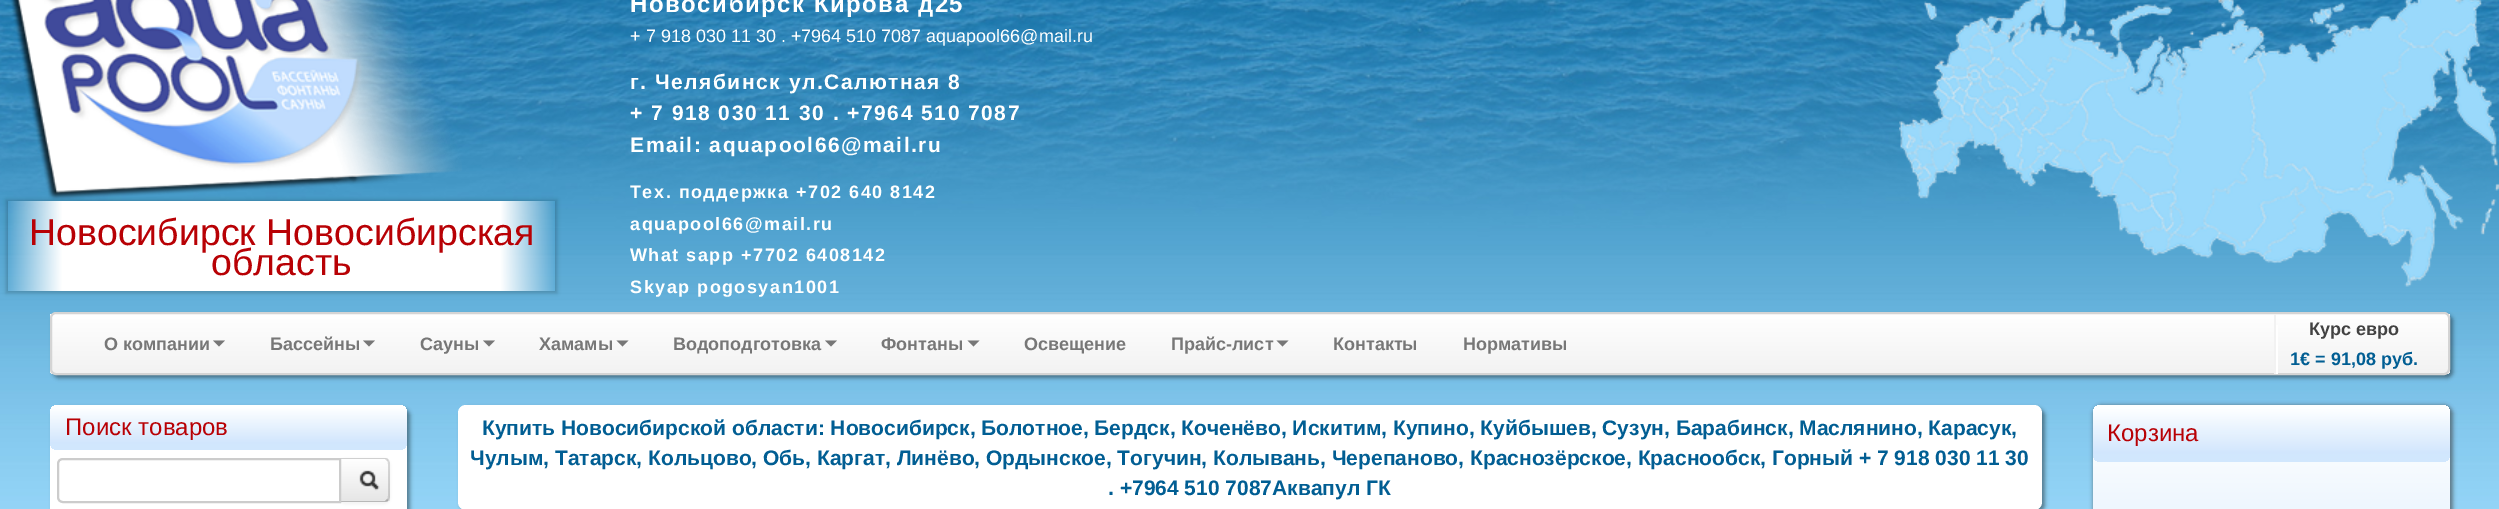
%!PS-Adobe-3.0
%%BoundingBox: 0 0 2499 509
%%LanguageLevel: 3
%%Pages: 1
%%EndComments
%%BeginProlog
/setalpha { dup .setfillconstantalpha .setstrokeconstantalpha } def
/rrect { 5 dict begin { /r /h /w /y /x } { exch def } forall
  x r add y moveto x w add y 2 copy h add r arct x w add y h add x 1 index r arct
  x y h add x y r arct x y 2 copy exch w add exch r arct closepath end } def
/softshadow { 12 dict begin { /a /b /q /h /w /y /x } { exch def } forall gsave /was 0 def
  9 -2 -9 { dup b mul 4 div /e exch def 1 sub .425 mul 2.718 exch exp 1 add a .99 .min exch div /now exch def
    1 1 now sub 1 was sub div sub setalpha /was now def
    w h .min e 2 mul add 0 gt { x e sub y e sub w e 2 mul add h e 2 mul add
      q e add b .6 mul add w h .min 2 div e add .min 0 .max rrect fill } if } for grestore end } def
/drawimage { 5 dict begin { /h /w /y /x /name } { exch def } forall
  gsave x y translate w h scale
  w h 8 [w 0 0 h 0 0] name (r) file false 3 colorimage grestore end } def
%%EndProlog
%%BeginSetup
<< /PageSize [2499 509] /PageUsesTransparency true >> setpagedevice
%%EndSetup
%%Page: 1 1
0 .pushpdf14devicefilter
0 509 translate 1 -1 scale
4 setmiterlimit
1 setgray
0 0 2499 509 rectfill
(images/1.raw) 0 0 2499 509 drawimage
(images/2.raw) 10 0 452 200 drawimage
gsave
newpath 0 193 moveto 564 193 lineto 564 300 lineto 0 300 lineto closepath 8 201 moveto 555 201 lineto 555 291 lineto 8 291 lineto closepath eoclip newpath
0 setgray
6 200 551 93 0 2 0.2 softshadow
grestore
(images/3.raw) 1899 0 600 287 drawimage
0 setgray
53 315 2400 63 6 2 0.4 softshadow
gsave
50 312 2400 63 6 rrect clip newpath
gsave newpath 50 314 moveto 2450 314 lineto 2450 374 lineto 50 374 lineto closepath clip newpath
<< /ShadingType 2 /ColorSpace /DeviceRGB /Coords [1250 313 1250 374] /Extend [true true] /Function << /FunctionType 2 /Domain [0 1] /C0 [1 1 1] /C1 [0.949 0.949 0.949] /N 1 >> >> shfill grestore
grestore
0.831 setgray
2 setlinewidth
51 313 2398 61 5 rrect stroke
0.467 setgray
newpath 213 340.5 moveto 225 340.5 lineto 219 346.5 lineto closepath fill
newpath 363 340.5 moveto 375 340.5 lineto 369 346.5 lineto closepath fill
newpath 483 340.5 moveto 495 340.5 lineto 489 346.5 lineto closepath fill
newpath 616.5 340.5 moveto 628.5 340.5 lineto 622.5 346.5 lineto closepath fill
newpath 825 340.5 moveto 837 340.5 lineto 831 346.5 lineto closepath fill
newpath 967.5 340.5 moveto 979.5 340.5 lineto 973.5 346.5 lineto closepath fill
newpath 1276.5 340.5 moveto 1288.5 340.5 lineto 1282.5 346.5 lineto closepath fill
1 setgray
2276 325 2 49 rectfill
0.949 setgray
2274 314 2 60 rectfill
0 setgray
53 408 357 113 8 2 0.4 softshadow
1 setgray
50 405 357 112 8 rrect fill
gsave 50 405 357 45 8 rrect clip newpath
<< /ShadingType 2 /ColorSpace /DeviceRGB /Coords [228 405 228 450] /Extend [true true] /Function << /FunctionType 3 /Domain [0 1] /Functions [<< /FunctionType 2 /Domain [0 1] /C0 [0.996 1 1] /C1 [0.996 1 1] /N 1 >> << /FunctionType 2 /Domain [0 1] /C0 [0.996 1 1] /C1 [0.82 0.902 0.992] /N 1 >> << /FunctionType 2 /Domain [0 1] /C0 [0.82 0.902 0.992] /C1 [0.82 0.906 0.992] /N 1 >> << /FunctionType 2 /Domain [0 1] /C0 [0.82 0.906 0.992] /C1 [0.82 0.906 0.992] /N 1 >>] /Bounds [0.06 0.85 0.88] /Encode [0 1 0 1 0 1 0 1] >> >> shfill grestore
0 setgray
339 459 51 45 6 1.5 0.05 softshadow
0.961 setgray
newpath 339 458 moveto 384 458 lineto 387.5 458 390 460.5 390 464 curveto 390 497 lineto 390 500.5 387.5 503 384 503 curveto 339 503 lineto closepath fill
gsave
newpath 339 458 moveto 384 458 lineto 387.5 458 390 460.5 390 464 curveto 390 497 lineto 390 500.5 387.5 503 384 503 curveto 339 503 lineto closepath clip newpath
gsave newpath 341 459 moveto 390 459 lineto 390 501 lineto 341 501 lineto closepath clip newpath
<< /ShadingType 2 /ColorSpace /DeviceRGB /Coords [365 459 365 501] /Extend [true true] /Function << /FunctionType 2 /Domain [0 1] /C0 [1 1 1] /C1 [0.902 0.902 0.902] /N 1 >> >> shfill grestore
grestore
0.2 setalpha
1 setgray
newpath 341 459 moveto 341 460 lineto 385 460 lineto 390 462 388 473 388 476 curveto 388 499 lineto 389 498 389 497 389 496 curveto 389 464 lineto 389 461 387 459 384 459 curveto closepath fill
0.15 setalpha
0 setgray
newpath 388 459 moveto 387 458 385 458 384 458 curveto 340 458 lineto 340 459 lineto 385 459 lineto 387 461 lineto closepath fill
newpath 388 459 moveto 389 460 390 462 390 464 curveto 390 496 lineto 390 498 389 500 388 501 curveto 387 499 lineto 388 499 388 497 388 496 curveto 388 464 lineto 388 463 388 461 387 461 curveto closepath fill
0.25 setalpha
newpath 388 501 moveto 387 502 385 502 384 502 curveto 340 502 lineto 340 501 lineto 385 501 lineto 387 499 lineto closepath fill
1 setalpha
1 setgray
newpath 63 459 moveto 340 459 lineto 340 502 lineto 63 502 lineto 60 502 58 500 58 497 curveto 58 464 lineto 58 461 60 459 63 459 curveto closepath gsave fill grestore
0.8 setgray
stroke
(images/4.raw) 359 470 21 21 drawimage
0 setgray
461 408 1584 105 8 2 0.4 softshadow
1 setgray
458 405 1584 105 8 rrect fill
0.251 setgray
2093 405 360 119 9 2 0.6 softshadow
gsave 2093 405 357 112 8 rrect clip newpath
<< /ShadingType 2 /ColorSpace /DeviceRGB /Coords [2271 405 2271 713] /Extend [true true] /Function << /FunctionType 3 /Domain [0 1] /Functions [<< /FunctionType 2 /Domain [0 1] /C0 [0.996 1 1] /C1 [0.996 1 1] /N 1 >> << /FunctionType 2 /Domain [0 1] /C0 [0.996 1 1] /C1 [0.82 0.902 0.992] /N 1 >> << /FunctionType 2 /Domain [0 1] /C0 [0.82 0.902 0.992] /C1 [0.82 0.906 0.992] /N 1 >> << /FunctionType 2 /Domain [0 1] /C0 [0.82 0.906 0.992] /C1 [0.82 0.906 0.992] /N 1 >>] /Bounds [0.06 0.85 0.88] /Encode [0 1 0 1 0 1 0 1] >> >> shfill grestore
gsave 2093 405 357 57 8 rrect clip newpath
<< /ShadingType 2 /ColorSpace /DeviceRGB /Coords [2271 405 2271 462] /Extend [true true] /Function << /FunctionType 3 /Domain [0 1] /Functions [<< /FunctionType 2 /Domain [0 1] /C0 [0.996 1 1] /C1 [0.996 1 1] /N 1 >> << /FunctionType 2 /Domain [0 1] /C0 [0.996 1 1] /C1 [0.82 0.902 0.992] /N 1 >> << /FunctionType 2 /Domain [0 1] /C0 [0.82 0.902 0.992] /C1 [0.82 0.906 0.992] /N 1 >> << /FunctionType 2 /Domain [0 1] /C0 [0.82 0.906 0.992] /C1 [0.82 0.906 0.992] /N 1 >>] /Bounds [0.06 0.85 0.88] /Encode [0 1 0 1 0 1 0 1] >> >> shfill grestore
/LiberationSans-Regular [37.5 0 0 -37.5 0 0] selectfont
0.722 0.004 0.02 setrgbcolor
29 245 moveto (Новосибирск Новосибирская) show
211 275 moveto (область) show
/LiberationSans-Bold [24 0 0 -24 0 0] selectfont
1 setgray
630 12 moveto 1.5 0 (Новосибирск Кирова д25) ashow
/LiberationSans-Regular [18 0 0 -18 0 0] selectfont
630 42 moveto (+ 7 918 030 11 30 . +7964 510 7087 aquapool66@mail.ru) show
/LiberationSans-Bold [21 0 0 -21 0 0] selectfont
630 89 moveto 1.5 0 (г. Челябинск ул.Салютная 8) ashow
630 120 moveto 1.5 0 (+ 7 918 030 11 30 . +7964 510 7087) ashow
630 152 moveto 1.5 0 (Email: aquapool66@mail.ru) ashow
/LiberationSans-Bold [18 0 0 -18 0 0] selectfont
630 198 moveto 1.5 0 (Тех. поддержка +702 640 8142) ashow
630 230 moveto 1.5 0 (aquapool66@mail.ru) ashow
630 261 moveto 1.5 0 (What sapp +7702 6408142) ashow
630 293 moveto 1.5 0 (Skyap pogosyan1001) ashow
0.467 setgray
104 350 moveto (О компании) show
270 350 moveto (Бассейны) show
420 350 moveto (Сауны) show
539 350 moveto (Хамамы) show
673 350 moveto (Водоподготовка) show
881 350 moveto (Фонтаны) show
1024 350 moveto (Освещение) show
1171 350 moveto (Прайс-лист) show
1333 350 moveto (Контакты) show
1463 350 moveto (Нормативы) show
0.259 setgray
2309 335 moveto (Курс евро) show
0.004 0.369 0.576 setrgbcolor
2290 365 moveto (1€ = 91,08 руб.) show
/LiberationSans-Regular [24 0 0 -24 0 0] selectfont
0.722 0.004 0.02 setrgbcolor
65 435 moveto (Поиск товаров) show
/LiberationSans-Bold [21 0 0 -21 0 0] selectfont
0.004 0.369 0.576 setrgbcolor
482 435 moveto (Купить Новосибирской области: Новосибирск, Болотное, Бердск, Коченёво, Искитим, Купино, Куйбышев, Сузун, Барабинск, Маслянино, Карасук,) show
470 465 moveto (Чулым, Татарск, Кольцово, Обь, Каргат, Линёво, Ордынское, Тогучин, Колывань, Черепаново, Краснозёрское, Краснообск, Горный + 7 918 030 11 30) show
1108 495 moveto (. +7964 510 7087Аквапул ГК) show
/LiberationSans-Regular [24 0 0 -24 0 0] selectfont
0.722 0.004 0.02 setrgbcolor
2107 441 moveto (Корзина) show
.poppdf14devicefilter showpage
%%EOF
